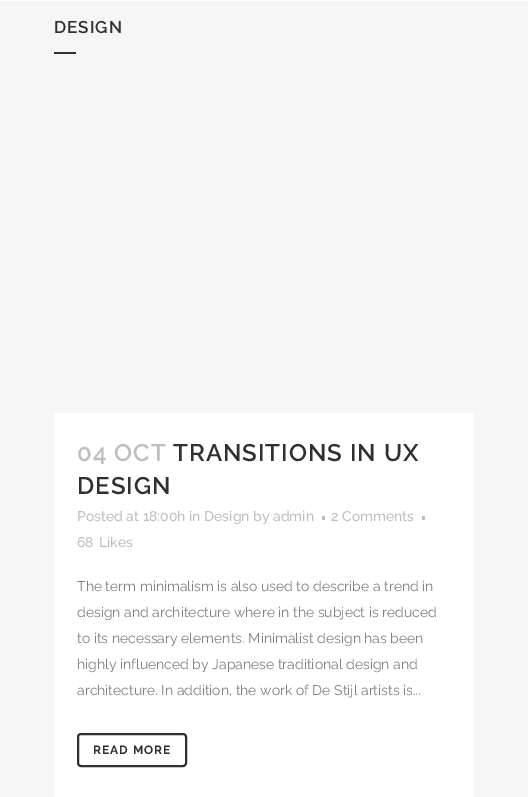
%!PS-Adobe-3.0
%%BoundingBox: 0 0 528 797
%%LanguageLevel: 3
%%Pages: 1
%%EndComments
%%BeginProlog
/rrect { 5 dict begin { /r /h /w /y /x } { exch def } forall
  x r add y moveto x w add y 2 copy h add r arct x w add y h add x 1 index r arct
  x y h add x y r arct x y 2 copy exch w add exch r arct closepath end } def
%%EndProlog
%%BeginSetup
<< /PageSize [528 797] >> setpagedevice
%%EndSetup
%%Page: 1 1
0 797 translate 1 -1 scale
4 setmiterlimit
0.965 setgray
0 0 528 797 rectfill
1 setgray
0 0 528 1 rectfill
0.188 setgray
54 52 22 2 rectfill
1 setgray
54 413 420 384 rectfill
0.745 setgray
322 516 3 4 rectfill
422 516 3 4 rectfill
0.188 setgray
2 setlinewidth
78 734 108 32 3 rrect stroke
/Raleway-SemiBold [17 0 0 -17 0 0] selectfont
54 33 moveto 1 0 (DESIGN) ashow
/Raleway-SemiBold [24 0 0 -24 0 0] selectfont
0.745 setgray
77 461 moveto 1 0 (04 OCT) ashow
0.188 setgray
173 461 moveto 1 0 (TRANSITIONS IN UX) ashow
77 494 moveto 1 0 (DESIGN) ashow
/Raleway-Medium [14 0 0 -14 0 0] selectfont
0.745 setgray
77 521 moveto (Posted at 18:00h in Design by admin) show
331 521 moveto (2 Comments) show
77 547 moveto (68) show
99 547 moveto (Likes) show
/Raleway-Regular [14 0 0 -14 0 0] selectfont
0.506 setgray
77 591 moveto (The term minimalism is also used to describe a trend in) show
77 617 moveto (design and architecture where in the subject is reduced) show
77 643 moveto (to its necessary elements. Minimalist design has been) show
77 669 moveto (highly influenced by Japanese traditional design and) show
77 695 moveto (architecture. In addition, the work of De Stijl artists is...) show
/Raleway-Bold [12 0 0 -12 0 0] selectfont
0.188 setgray
93 754 moveto 1 0 (READ MORE) ashow
showpage
%%EOF
